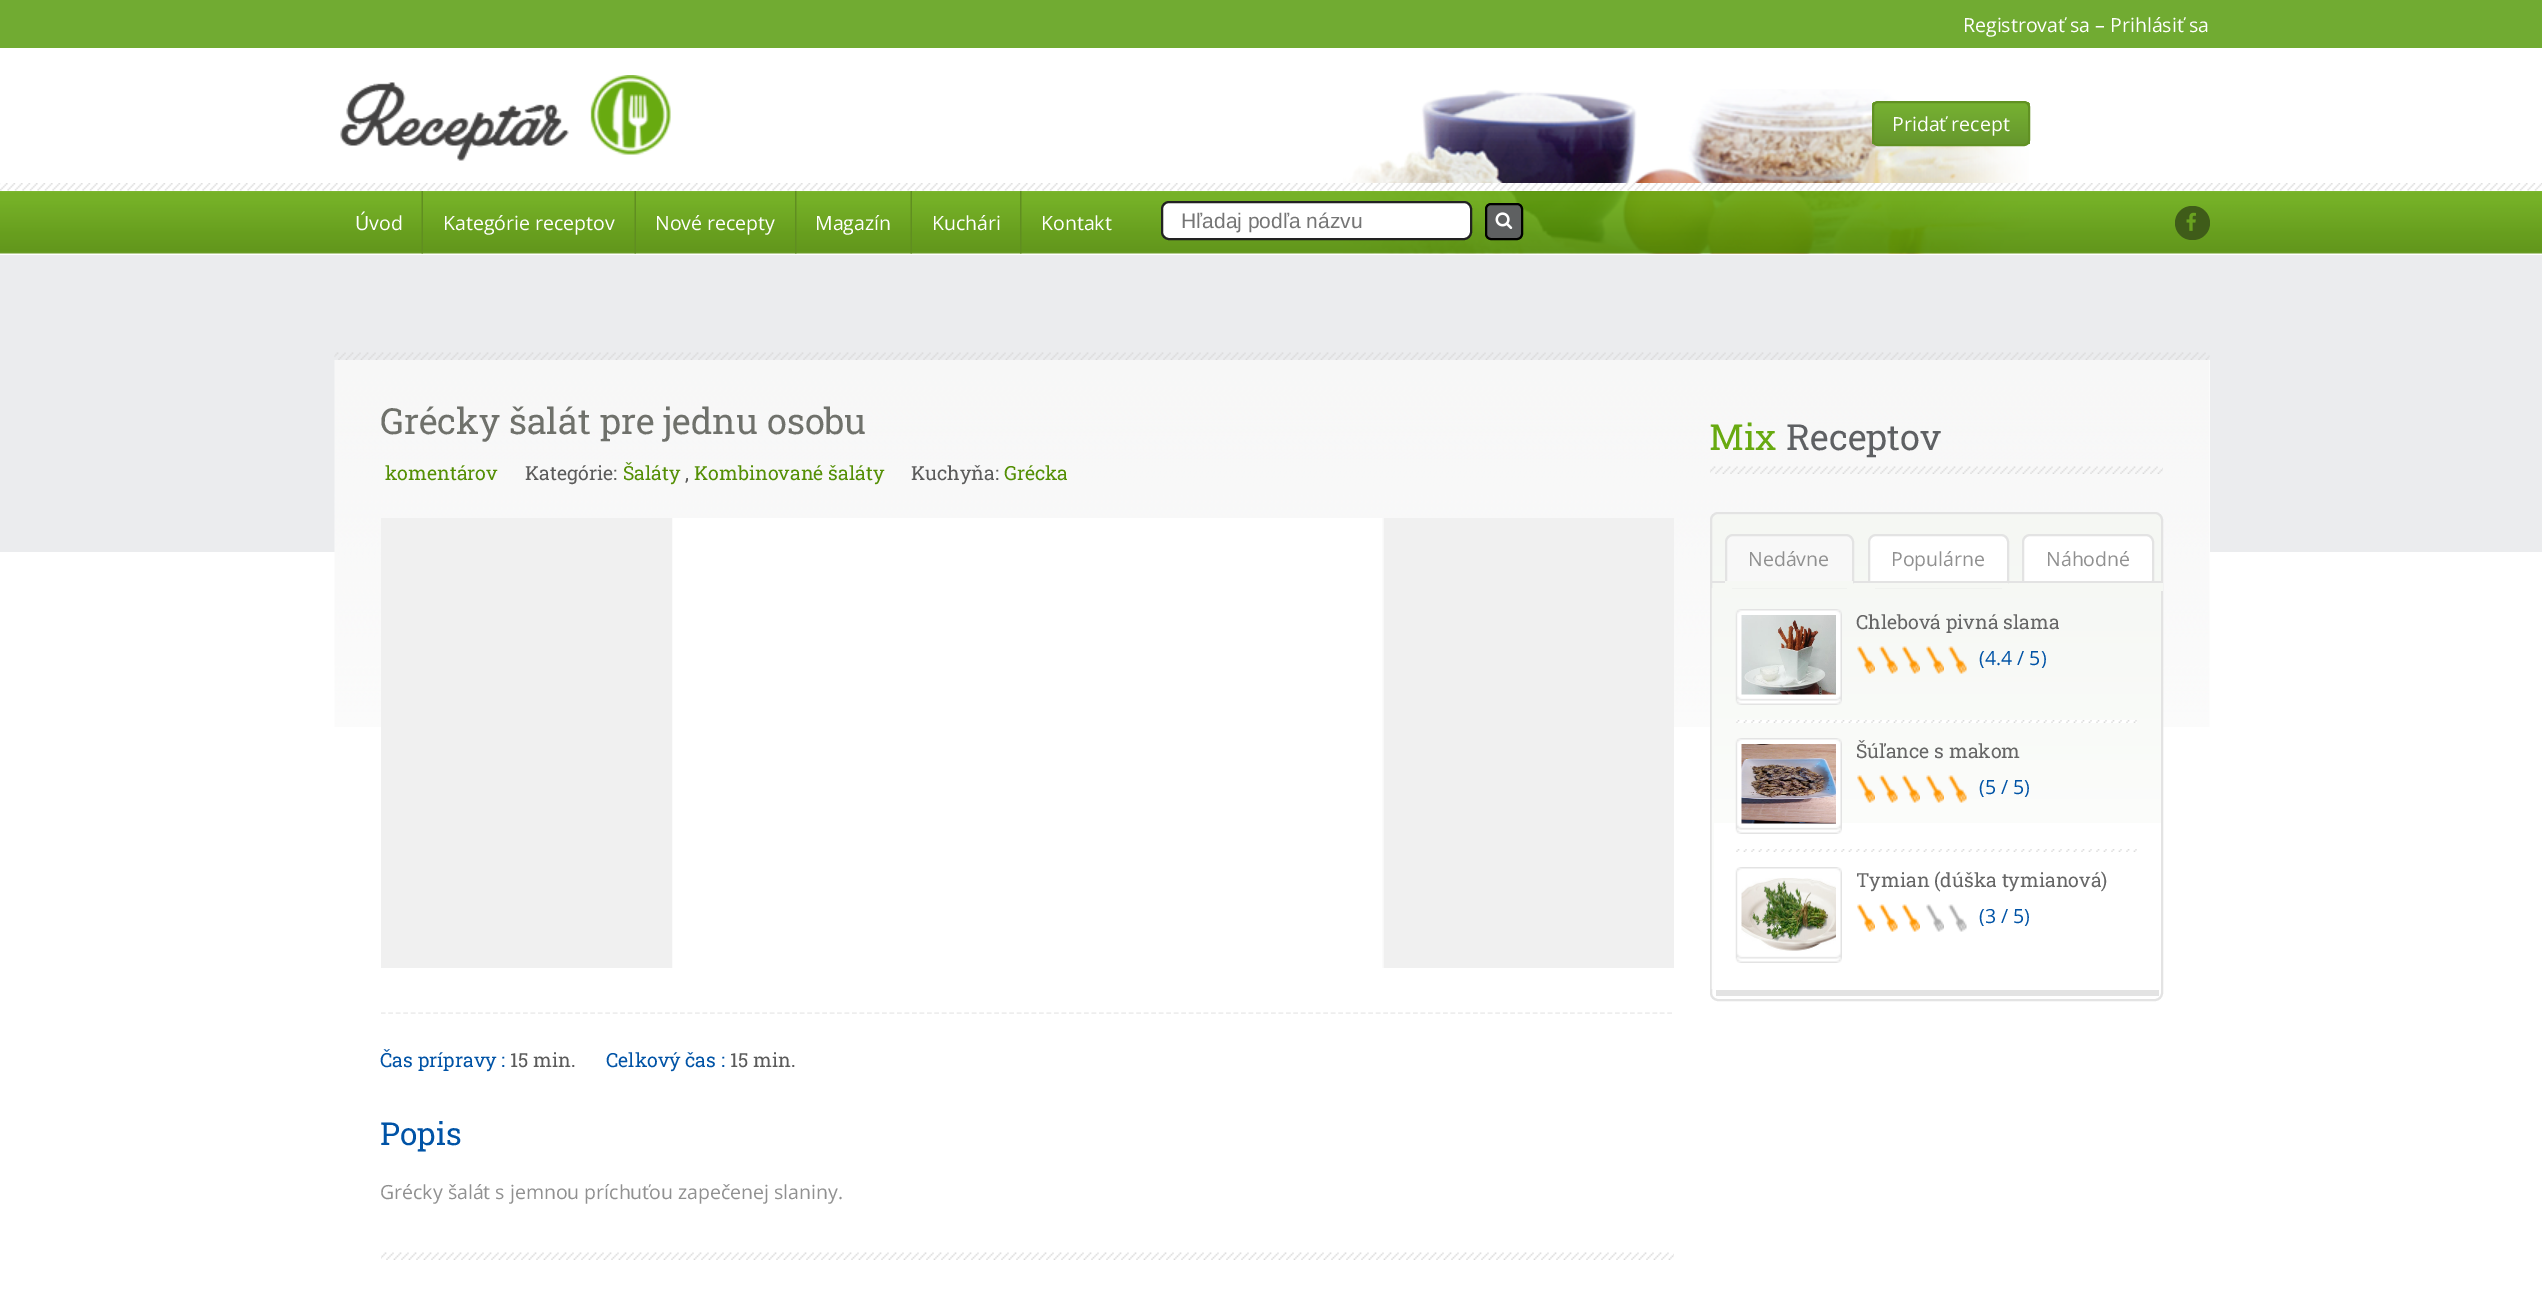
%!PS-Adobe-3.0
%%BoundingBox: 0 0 2542 1304
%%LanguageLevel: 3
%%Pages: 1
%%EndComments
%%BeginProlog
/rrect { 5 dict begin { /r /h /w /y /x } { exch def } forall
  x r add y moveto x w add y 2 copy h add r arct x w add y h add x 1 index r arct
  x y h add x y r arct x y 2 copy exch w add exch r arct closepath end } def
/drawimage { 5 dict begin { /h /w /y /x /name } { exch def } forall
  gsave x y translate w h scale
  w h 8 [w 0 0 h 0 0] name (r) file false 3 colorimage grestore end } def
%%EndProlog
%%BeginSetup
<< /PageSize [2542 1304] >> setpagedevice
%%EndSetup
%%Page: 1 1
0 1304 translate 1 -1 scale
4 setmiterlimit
1 setgray
0 0 2542 1304 rectfill
0.443 0.671 0.196 setrgbcolor
0 0 2542 48 rectfill
(images/1.raw) 340 75 331 86 drawimage
(images/2.raw) 1343 89 686 165 drawimage
gsave
1872 101 158 45 6 rrect clip newpath
gsave newpath 1872 102 moveto 2030 102 lineto 2030 144 lineto 1872 144 lineto closepath clip newpath
<< /ShadingType 2 /ColorSpace /DeviceRGB /Coords [1951 102 1951 144] /Extend [true true] /Function << /FunctionType 2 /Domain [0 1] /C0 [0.467 0.698 0.196] /C1 [0.4 0.592 0.176] /N 1 >> >> shfill grestore
grestore
0.38 0.569 0.137 setrgbcolor
2 setlinewidth
1873 102 156 43 5 rrect stroke
1 setgray
1343 183 684 8 rectfill
(images/3.raw) 0 183 2542 8 drawimage
(images/4.raw) 0 191 2542 63 drawimage
(images/5.raw) 421 191 2 63 drawimage
(images/6.raw) 634 191 2 63 drawimage
(images/7.raw) 795 191 2 63 drawimage
(images/5.raw) 910 191 2 63 drawimage
(images/8.raw) 1020 191 2 63 drawimage
1162 202 309 37 7 rrect gsave fill grestore
0.133 setgray
stroke
0.369 0.376 0.38 setrgbcolor
1486 204 36 35 5 rrect gsave fill grestore
0 setgray
stroke
(images/9.raw) 1495 212 18 17 drawimage
0.247 0.361 0.098 setrgbcolor
2175 206 35 34 17 rrect fill
(images/10.raw) 2186 212 10 19 drawimage
0.922 0.925 0.933 setrgbcolor
0 255 2542 297 rectfill
(images/11.raw) 334 352 1876 8 drawimage
1 setgray
335 360 1875 192 rectfill
(images/12.raw) 334 360 1876 367 drawimage
0.933 setgray
1.5 setlinewidth
[4.5 2.98] 0 setdash
newpath 381 1013 moveto 1674 1013 lineto stroke
0.941 setgray
381 518 1293 450 rectfill
(images/13.raw) 672 518 712 450 drawimage
(images/14.raw) 381 1252 1293 8 drawimage
(images/15.raw) 1710 466 453 8 drawimage
(images/16.raw) 1710 513 453 310 drawimage
0.89 setgray
2 setlinewidth
[] 0 setdash
1711 513 451 487 7 rrect stroke
1712 581 309 2 rectfill
0.973 setgray
1726 535 127 52 7 rrect gsave fill grestore
0.89 setgray
stroke
0.965 0.973 0.957 setrgbcolor
1725 581 128 7 rectfill
1 setgray
1869 535 139 52 7 rrect gsave fill grestore
0.89 setgray
stroke
0.965 0.973 0.957 setrgbcolor
1866 583 142 5 rectfill
0.89 setgray
1866 581 143 2 rectfill
1 setgray
2023 535 130 52 7 rrect gsave fill grestore
0.89 setgray
stroke
0.965 0.973 0.957 setrgbcolor
2021 583 142 8 rectfill
0.89 setgray
2021 581 142 2 rectfill
(images/17.raw) 1711 588 3 401 drawimage
1716 990 443 6 rectfill
(images/18.raw) 1736 720 401 3 drawimage
(images/19.raw) 1735 609 107 96 drawimage
(images/20.raw) 1741 615 95 80 drawimage
(images/21.raw) 1857 646 18 28 drawimage
(images/22.raw) 1879 646 19 28 drawimage
(images/21.raw) 1902 646 18 28 drawimage
(images/21.raw) 1926 646 18 28 drawimage
(images/22.raw) 1948 646 19 28 drawimage
(images/18.raw) 1736 849 401 3 drawimage
(images/23.raw) 1735 738 107 96 drawimage
(images/24.raw) 1741 744 95 80 drawimage
(images/25.raw) 1857 775 18 28 drawimage
(images/26.raw) 1879 775 19 28 drawimage
(images/25.raw) 1902 775 18 28 drawimage
(images/25.raw) 1926 775 18 28 drawimage
(images/26.raw) 1948 775 19 28 drawimage
(images/27.raw) 1735 867 107 96 drawimage
(images/28.raw) 1741 878 95 73 drawimage
(images/29.raw) 1857 904 18 28 drawimage
(images/30.raw) 1879 904 19 28 drawimage
(images/29.raw) 1902 904 18 28 drawimage
(images/31.raw) 1926 904 18 28 drawimage
(images/32.raw) 1948 904 19 28 drawimage
/OpenSans-Regular [19.5 0 0 -19.5 0 0] selectfont
1 setgray
1963 32 moveto (Registrovať sa – Prihlásiť sa) show
1892 131 moveto (Pridať recept) show
355 230 moveto (Úvod) show
443 230 moveto (Kategórie receptov) show
655 230 moveto (Nové recepty) show
815 230 moveto (Magazín) show
932 230 moveto (Kuchári) show
1041 230 moveto (Kontakt) show
/LiberationSans-Regular [21 0 0 -21 0 0] selectfont
0.459 setgray
1181 228 moveto (Hľadaj podľa názvu) show
/RobotoSlab-Regular [36 0 0 -36 0 0] selectfont
0.435 0.443 0.42 setrgbcolor
380 434 moveto (Grécky šalát pre jednu osobu) show
/RobotoSlab-Regular [19.5 0 0 -19.5 0 0] selectfont
0.329 0.561 0.016 setrgbcolor
385 480 moveto (komentárov) show
0.357 setgray
525 480 moveto (Kategórie:) show
0.329 0.561 0.016 setrgbcolor
623 480 moveto (Šaláty) show
0.357 setgray
685 480 moveto (,) show
0.329 0.561 0.016 setrgbcolor
694 480 moveto (Kombinované šaláty) show
0.357 setgray
911 480 moveto (Kuchyňa:) show
0.329 0.561 0.016 setrgbcolor
1004 480 moveto (Grécka) show
0 0.325 0.651 setrgbcolor
380 1067 moveto (Čas prípravy :) show
0.357 setgray
510 1067 moveto (15 min.) show
0 0.325 0.651 setrgbcolor
606 1067 moveto (Celkový čas :) show
0.357 setgray
730 1067 moveto (15 min.) show
/RobotoSlab-Regular [31.5 0 0 -31.5 0 0] selectfont
0 0.325 0.651 setrgbcolor
380 1145 moveto (Popis) show
/OpenSans-Regular [19.5 0 0 -19.5 0 0] selectfont
0.565 setgray
380 1199 moveto (Grécky šalát s jemnou príchuťou zapečenej slaniny.) show
/RobotoSlab-Regular [36 0 0 -36 0 0] selectfont
0.408 0.667 0.063 setrgbcolor
1709 450 moveto (Mix) show
0.369 0.376 0.388 setrgbcolor
1786 450 moveto (Receptov) show
/OpenSans-Regular [19.5 0 0 -19.5 0 0] selectfont
0.565 setgray
1748 566 moveto (Nedávne) show
1891 566 moveto (Populárne) show
2046 566 moveto (Náhodné) show
/RobotoSlab-Regular [19.5 0 0 -19.5 0 0] selectfont
0.4 setgray
1856 629 moveto (Chlebová pivná slama) show
/OpenSans-Regular [19.5 0 0 -19.5 0 0] selectfont
0 0.325 0.651 setrgbcolor
1979 665 moveto (\(4.4 / 5\)) show
/RobotoSlab-Regular [19.5 0 0 -19.5 0 0] selectfont
0.4 setgray
1856 758 moveto (Šúľance s makom) show
/OpenSans-Regular [19.5 0 0 -19.5 0 0] selectfont
0 0.325 0.651 setrgbcolor
1979 794 moveto (\(5 / 5\)) show
/RobotoSlab-Regular [19.5 0 0 -19.5 0 0] selectfont
0.4 setgray
1856 887 moveto (Tymian \(dúška tymianová\)) show
/OpenSans-Regular [19.5 0 0 -19.5 0 0] selectfont
0 0.325 0.651 setrgbcolor
1979 923 moveto (\(3 / 5\)) show
showpage
%%EOF
